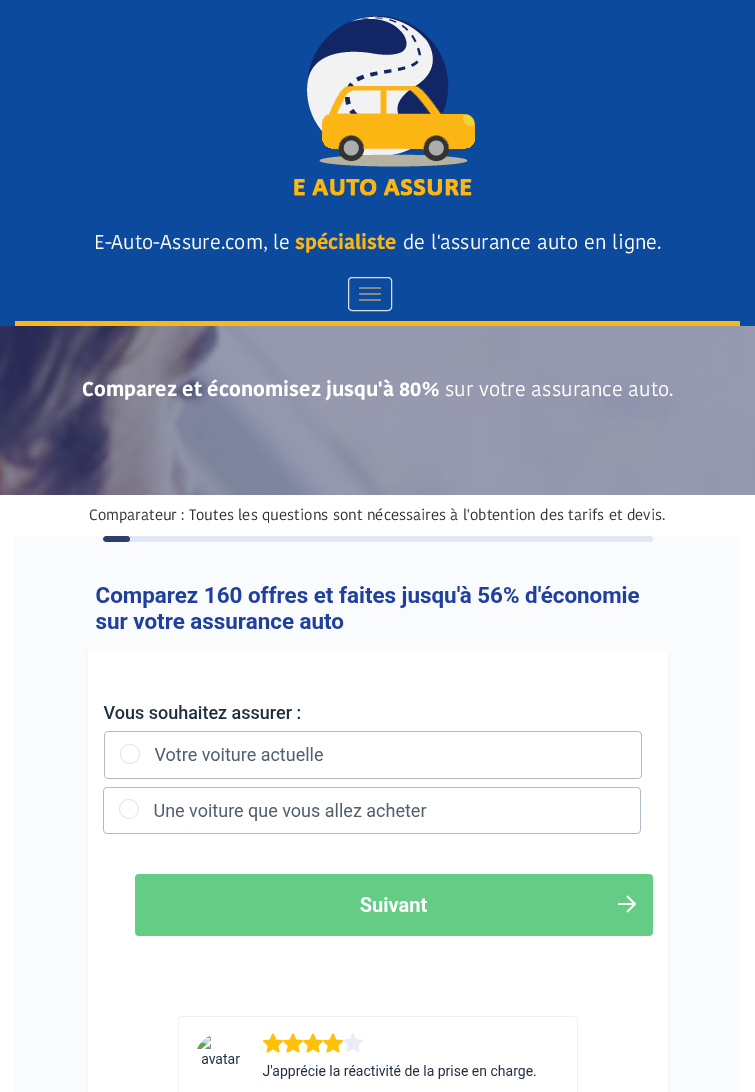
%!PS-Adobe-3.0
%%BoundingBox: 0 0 755 1092
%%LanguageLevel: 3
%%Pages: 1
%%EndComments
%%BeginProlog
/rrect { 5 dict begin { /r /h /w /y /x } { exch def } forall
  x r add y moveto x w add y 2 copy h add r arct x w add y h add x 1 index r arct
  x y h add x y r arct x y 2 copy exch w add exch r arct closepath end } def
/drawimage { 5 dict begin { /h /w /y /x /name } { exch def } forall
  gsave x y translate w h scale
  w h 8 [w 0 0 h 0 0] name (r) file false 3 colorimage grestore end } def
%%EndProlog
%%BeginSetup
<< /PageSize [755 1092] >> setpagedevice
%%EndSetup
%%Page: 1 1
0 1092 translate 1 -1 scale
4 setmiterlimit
0.043 0.29 0.612 setrgbcolor
0 0 755 1092 rectfill
0.988 0.714 0.078 setrgbcolor
15 321 725 5 rectfill
(images/1.raw) 294 16 181 180 drawimage
0.867 setgray
348.5 277.5 43 33 3.5 rrect stroke
0.533 setgray
359 287 22 2 1 rrect fill
359 293 22 2 1 rrect fill
359 299 22 2 1 rrect fill
(images/2.raw) 0 326 755 169 drawimage
1 setgray
0 495 755 597 rectfill
(images/3.raw) 15 536 725 556 drawimage
/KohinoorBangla-Regular [20 0 0 -20 0 0] selectfont
94 249 moveto (E-Auto-Assure.com, le) show
/KohinoorBangla-Bold [20 0 0 -20 0 0] selectfont
0.988 0.714 0.078 setrgbcolor
295 249 moveto (spécialiste) show
/KohinoorBangla-Regular [20 0 0 -20 0 0] selectfont
1 setgray
403 249 moveto (de l'assurance auto en ligne.) show
/KohinoorBangla-Bold [20 0 0 -20 0 0] selectfont
82 396 moveto (Comparez et économisez jusqu'à 80%) show
/KohinoorBangla-Regular [20 0 0 -20 0 0] selectfont
445 396 moveto (sur votre assurance auto.) show
/KohinoorBangla-Regular [15 0 0 -15 0 0] selectfont
0.2 setgray
89 520 moveto (Comparateur : Toutes les questions sont nécessaires à l'obtention des tarifs et devis.) show
showpage
%%EOF
